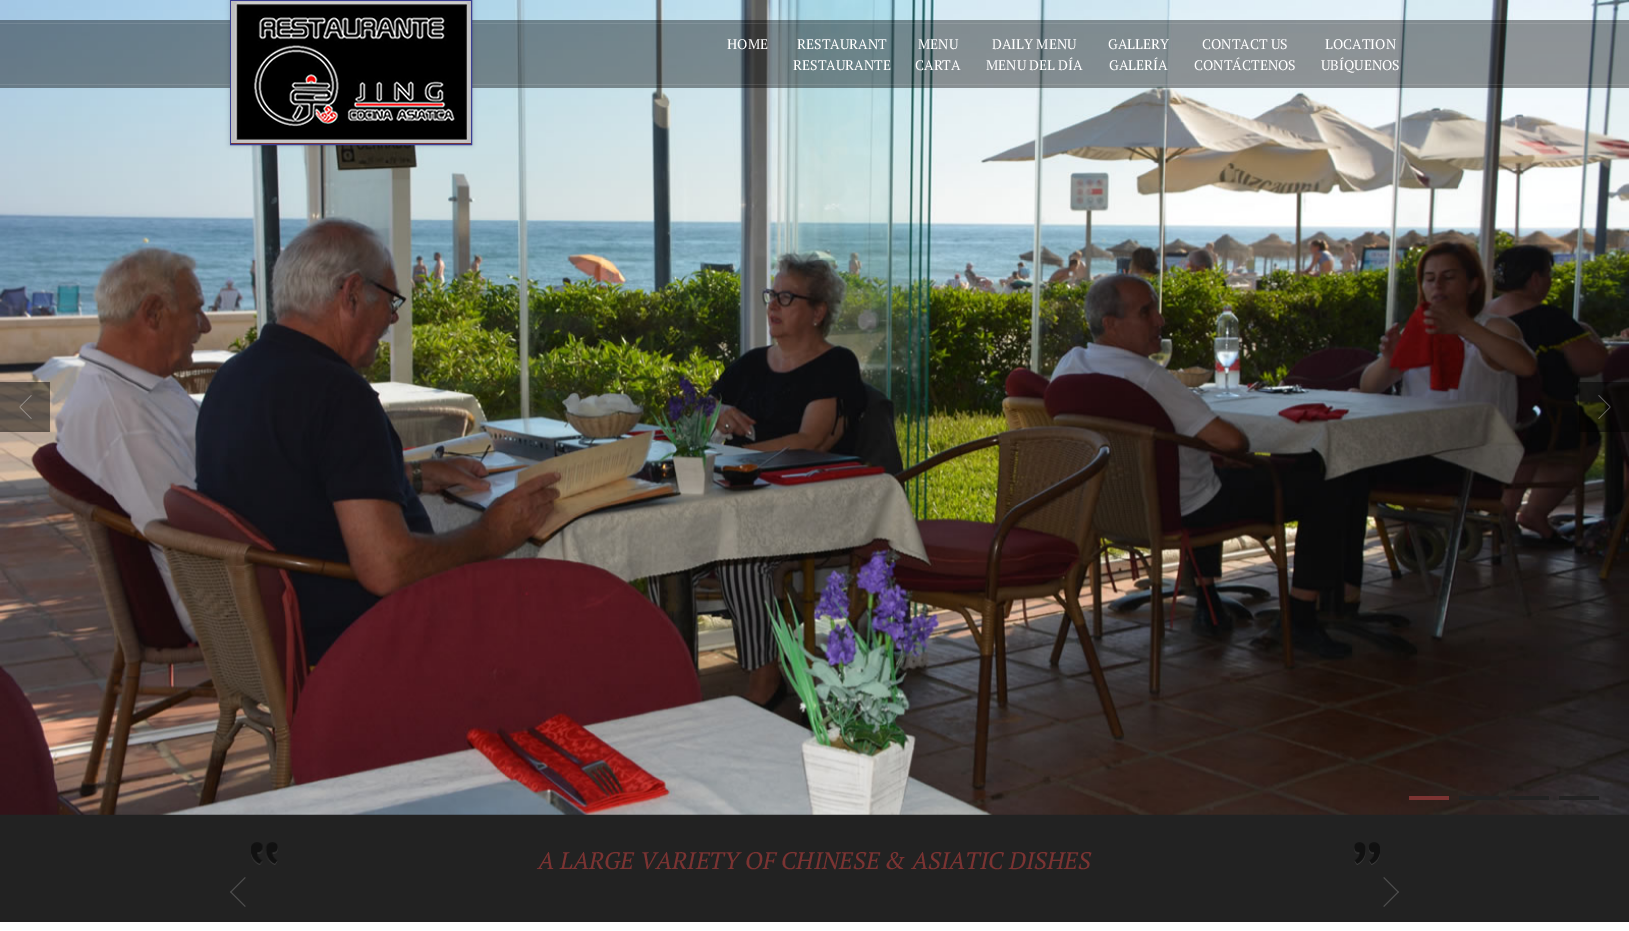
%!PS-Adobe-3.0
%%BoundingBox: 0 0 1629 931
%%LanguageLevel: 3
%%Pages: 1
%%EndComments
%%BeginProlog
/setalpha { dup .setfillconstantalpha .setstrokeconstantalpha } def
/rrect { 5 dict begin { /r /h /w /y /x } { exch def } forall
  x r add y moveto x w add y 2 copy h add r arct x w add y h add x 1 index r arct
  x y h add x y r arct x y 2 copy exch w add exch r arct closepath end } def
/softshadow { 12 dict begin { /a /b /q /h /w /y /x } { exch def } forall gsave /was 0 def
  9 -2 -9 { dup b mul 4 div /e exch def 1 sub .425 mul 2.718 exch exp 1 add a .99 .min exch div /now exch def
    1 1 now sub 1 was sub div sub setalpha /was now def
    w h .min e 2 mul add 0 gt { x e sub y e sub w e 2 mul add h e 2 mul add
      q e add b .6 mul add w h .min 2 div e add .min 0 .max rrect fill } if } for grestore end } def
/drawimage { 5 dict begin { /h /w /y /x /name } { exch def } forall
  gsave x y translate w h scale
  w h 8 [w 0 0 h 0 0] name (r) file false 3 colorimage grestore end } def
%%EndProlog
%%BeginSetup
<< /PageSize [1629 931] /PageUsesTransparency true >> setpagedevice
%%EndSetup
%%Page: 1 1
0 .pushpdf14devicefilter
0 931 translate 1 -1 scale
4 setmiterlimit
1 setgray
0 0 1629 931 rectfill
0.133 setgray
0 814 1629 108 rectfill
(images/1.raw) 0 0 1629 815 drawimage
0.5 setalpha
0 setgray
0 382 50 50 rectfill
1 setalpha
(images/2.raw) 19 395 13 24 drawimage
0.5 setalpha
1579 382 50 50 rectfill
1 setalpha
(images/3.raw) 1598 395 13 24 drawimage
0.482 0.2 0.196 setrgbcolor
1409 796 40 4 rectfill
0.133 setgray
1459 796 40 4 rectfill
1509 796 40 4 rectfill
1559 796 40 4 rectfill
0.4 setalpha
0 setgray
0 20 1629 68 rectfill
0.1 setalpha
1 setgray
0 23 1629 1 rectfill
0 84 1629 1 rectfill
1 setalpha
0 setgray
230 0 242 145 0 2.5 0.2 softshadow
0.482 0.2 0.196 setrgbcolor
231 143 240 1 rectfill
0.224 0.243 0.58 setrgbcolor
230.5 0.5 241 144 rectstroke
(images/4.raw) 231 1 240 142 drawimage
(images/5.raw) 251 842 1129 23 drawimage
0.306 setgray
newpath 231 891.5 moveto 245.5 906 lineto 245 907 lineto 230 892 lineto closepath fill
newpath 245 877 moveto 245.5 878 lineto 231 892.5 lineto 230 892 lineto closepath fill
newpath 1384 877 moveto 1399 892 lineto 1398 892.5 lineto 1383.5 878 lineto closepath fill
newpath 1398 891.5 moveto 1399 892 lineto 1384 907 lineto 1383.5 906 lineto closepath fill
/PTSerif-Regular [14 0 0 -14 0 0] selectfont
1 setgray
727 49 moveto (HOME) show
797 49 moveto (RESTAURANT) show
793 70 moveto (RESTAURANTE) show
918 49 moveto (MENU) show
915 70 moveto (CARTA) show
992 49 moveto (DAILY MENU) show
986 70 moveto (MENU DEL DÍA) show
1108 49 moveto (GALLERY) show
1109 70 moveto (GALERÍA) show
1202 49 moveto (CONTACT US) show
1194 70 moveto (CONTÁCTENOS) show
1325 49 moveto (LOCATION) show
1321 70 moveto (UBÍQUENOS) show
/PTSerif-Italic [24 0 0 -24 0 0] selectfont
0.482 0.2 0.196 setrgbcolor
538 869 moveto (A LARGE VARIETY OF CHINESE & ASIATIC DISHES) show
.poppdf14devicefilter showpage
%%EOF
